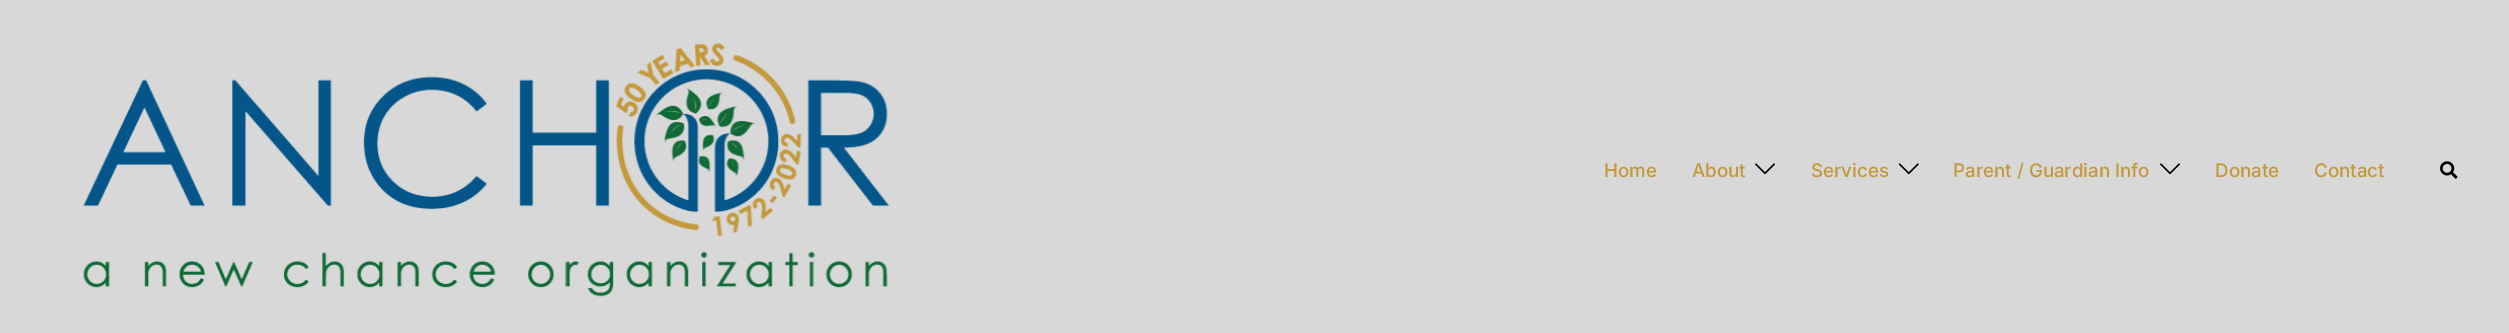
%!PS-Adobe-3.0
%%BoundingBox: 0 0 2509 333
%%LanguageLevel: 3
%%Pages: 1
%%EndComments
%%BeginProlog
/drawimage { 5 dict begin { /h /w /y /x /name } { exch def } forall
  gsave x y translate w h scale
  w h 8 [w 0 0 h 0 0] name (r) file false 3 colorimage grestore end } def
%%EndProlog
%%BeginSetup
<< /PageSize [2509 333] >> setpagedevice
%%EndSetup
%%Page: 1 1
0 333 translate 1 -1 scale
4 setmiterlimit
0.847 setgray
0 0 2509 333 rectfill
(images/1.raw) 83 43 807 254 drawimage
(images/2.raw) 1755 163 20 12 drawimage
(images/3.raw) 1899 163 20 12 drawimage
(images/2.raw) 2160 163 20 12 drawimage
(images/4.raw) 2440 161 18 18 drawimage
/Inter-Medium [18.75 0 0 -18.75 0 0] selectfont
0.765 0.6 0.235 setrgbcolor
1604 177 moveto (Home) show
1692 177 moveto (About) show
1811 177 moveto (Services) show
1953 177 moveto (Parent / Guardian Info) show
2215 177 moveto (Donate) show
2314 177 moveto (Contact) show
showpage
%%EOF
